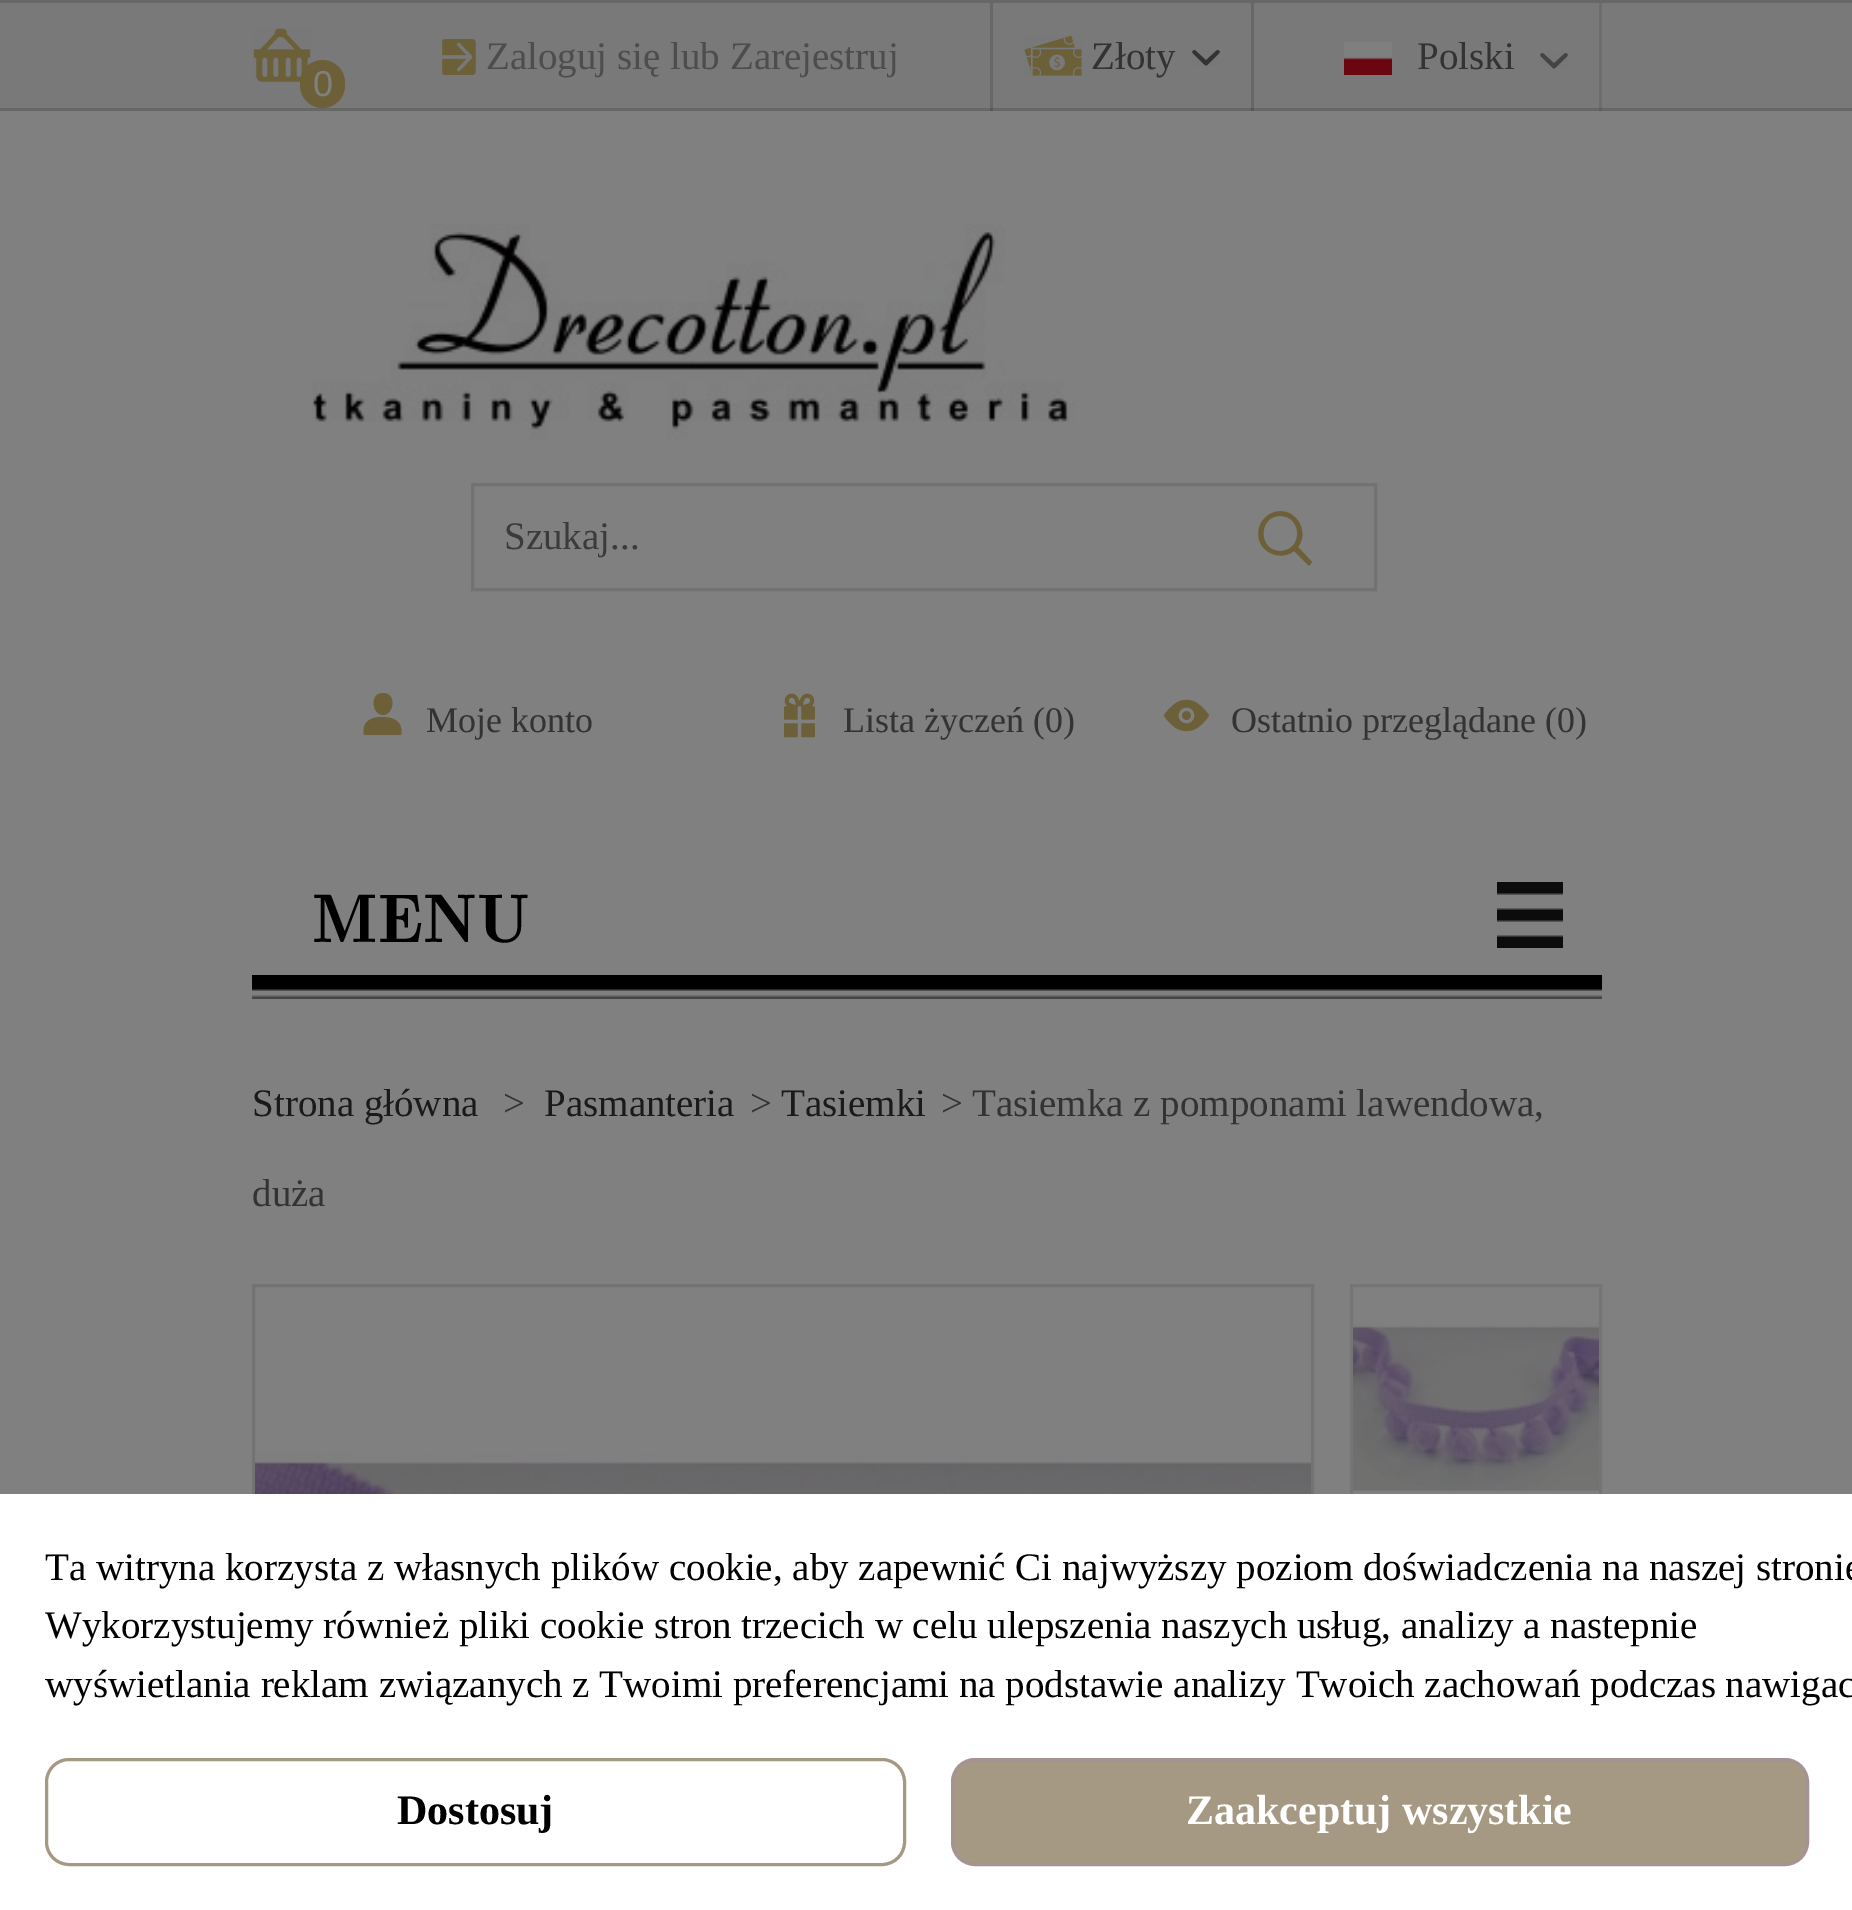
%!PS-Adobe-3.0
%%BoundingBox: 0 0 1852 1910
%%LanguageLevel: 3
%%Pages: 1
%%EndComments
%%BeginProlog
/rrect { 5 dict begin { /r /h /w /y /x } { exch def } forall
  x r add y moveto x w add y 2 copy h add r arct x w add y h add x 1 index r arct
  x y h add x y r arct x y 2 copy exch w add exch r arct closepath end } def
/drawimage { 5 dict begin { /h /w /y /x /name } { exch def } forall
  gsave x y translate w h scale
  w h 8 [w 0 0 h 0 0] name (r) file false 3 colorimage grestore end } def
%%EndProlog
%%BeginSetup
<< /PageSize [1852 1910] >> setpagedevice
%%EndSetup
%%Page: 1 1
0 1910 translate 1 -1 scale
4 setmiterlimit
0.475 setgray
0 0 1852 1910 rectfill
0.404 setgray
990 3 3 108 rectfill
1251 3 3 108 rectfill
0.427 setgray
1599 3 3 108 rectfill
0.404 setgray
0 0 1852 3 rectfill
0.502 setgray
0 111 1852 1383 rectfill
(images/1.raw) 442 39 34 36 drawimage
(images/2.raw) 1024 35 58 41 drawimage
(images/3.raw) 1192 50 28 16 drawimage
(images/4.raw) 1344 42 48 33 drawimage
(images/5.raw) 1540 53 28 16 drawimage
(images/6.raw) 253 28 58 54 drawimage
0.427 0.376 0.224 setrgbcolor
300 60 45 48 22.5 rrect fill
(images/7.raw) 312 223 763 218 drawimage
0.455 0.443 0.443 setrgbcolor
3 setlinewidth
472.5 484.5 903 105 rectstroke
0.427 0.376 0.224 setrgbcolor
newpath 1298 547 moveto 1311 530 1293 504 1272 513 curveto 1267 515 1262 520 1260 525 curveto 1257 532 1258 540 1262 546 curveto 1269 556 1284 559 1294 551 curveto 1309 566 lineto 1312 562 lineto closepath 1280 551 moveto 1258 551 1258 516 1280 516 curveto 1303 516 1303 551 1280 551 curveto closepath fill
newpath 382 717 moveto 359 717 364 735 364 735 curveto 401 735 lineto 401 735 406 717 382 717 curveto closepath 383 715 moveto 394 715 397 693 383 693 curveto 369 693 372 715 383 715 curveto closepath fill
(images/8.raw) 784 693 31 45 drawimage
(images/9.raw) 1164 699 45 33 drawimage
(images/10.raw) 252 975 1350 24 drawimage
(images/11.raw) 1497 882 66 66 drawimage
0.451 setgray
253.5 1285.5 1059 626 rectstroke
(images/12.raw) 255 1452 1056 42 drawimage
0.459 setgray
1351.5 1285.5 249 249 rectstroke
(images/13.raw) 1353 1323 246 169 drawimage
1 setgray
0 1494 1852 416 rectfill
0.647 0.6 0.514 setrgbcolor
46.5 1759.5 858 105 22.5 rrect stroke
952.5 1759.5 855 105 22.5 rrect gsave fill grestore
0.647 0.573 0.576 setrgbcolor
stroke
0.404 setgray
0 108 1852 3 rectfill
0.341 setgray
990 108 3 3 rectfill
1251 108 3 3 rectfill
0.365 setgray
1599 108 3 3 rectfill
/LiberationSerif-Regular [39 0 0 -39 0 0] selectfont
0.302 setgray
486 69 moveto (Zaloguj się lub Zarejestruj) show
0.2 setgray
1091 69 moveto (Złoty) show
1417 69 moveto (Polski) show
/LiberationSans-Regular [36 0 0 -36 0 0] selectfont
0.502 setgray
313 96 moveto (0) show
/LiberationSerif-Regular [39 0 0 -39 0 0] selectfont
0.231 setgray
504 549 moveto (Szukaj...) show
/LiberationSerif-Regular [36 0 0 -36 0 0] selectfont
0.2 setgray
426 732 moveto (Moje konto) show
843 732 moveto (Lista życzeń \(0\)) show
1231 732 moveto (Ostatnio przeglądane \(0\)) show
/LatinModernRomanDemi-Regular [69 0 0 -69 0 0] selectfont
0 setgray
312 942 moveto (MENU) show
/LiberationSerif-Regular [39 0 0 -39 0 0] selectfont
0.102 setgray
252 1116 moveto (Strona główna) show
0.2 setgray
503 1116 moveto (>) show
0.102 setgray
544 1116 moveto (Pasmanteria) show
0.2 setgray
750 1116 moveto (>) show
0.102 setgray
781 1116 moveto (Tasiemki) show
0.2 setgray
941 1116 moveto (>) show
972 1116 moveto (Tasiemka z pomponami lawendowa,) show
252 1206 moveto (duża) show
0 setgray
45 1580 moveto (Ta witryna korzysta z własnych plików cookie, aby zapewnić Ci najwyższy poziom doświadczenia na naszej stronie) show
45 1638 moveto (Wykorzystujemy również pliki cookie stron trzecich w celu ulepszenia naszych usług, analizy a nastepnie) show
45 1697 moveto (wyświetlania reklam związanych z Twoimi preferencjami na podstawie analizy Twoich zachowań podczas nawigac) show
/LiberationSerif-Bold [42 0 0 -42 0 0] selectfont
397 1824 moveto (Dostosuj) show
1 setgray
1186 1824 moveto (Zaakceptuj wszystkie) show
showpage
%%EOF
